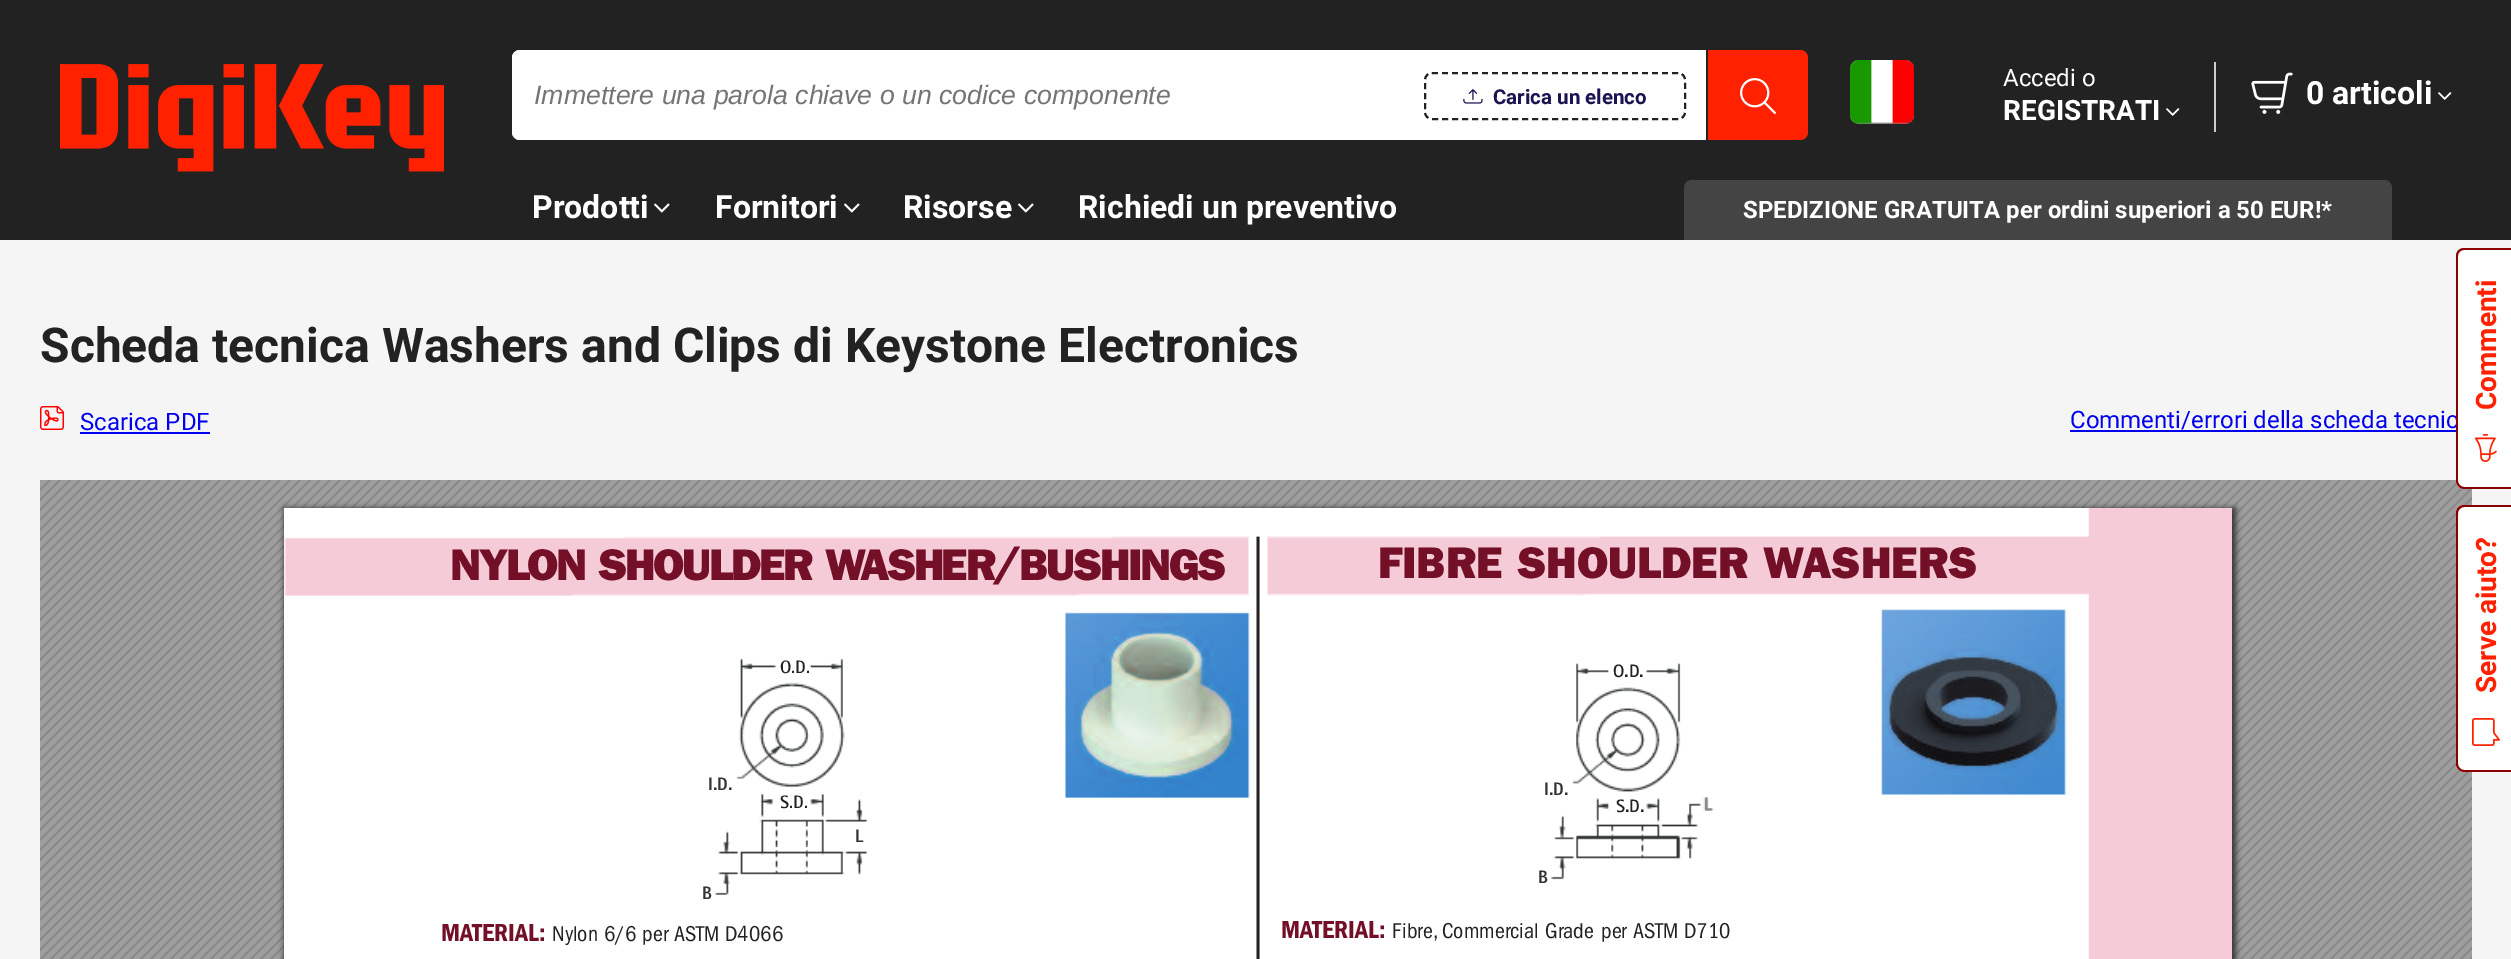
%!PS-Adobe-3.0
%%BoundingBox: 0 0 2511 959
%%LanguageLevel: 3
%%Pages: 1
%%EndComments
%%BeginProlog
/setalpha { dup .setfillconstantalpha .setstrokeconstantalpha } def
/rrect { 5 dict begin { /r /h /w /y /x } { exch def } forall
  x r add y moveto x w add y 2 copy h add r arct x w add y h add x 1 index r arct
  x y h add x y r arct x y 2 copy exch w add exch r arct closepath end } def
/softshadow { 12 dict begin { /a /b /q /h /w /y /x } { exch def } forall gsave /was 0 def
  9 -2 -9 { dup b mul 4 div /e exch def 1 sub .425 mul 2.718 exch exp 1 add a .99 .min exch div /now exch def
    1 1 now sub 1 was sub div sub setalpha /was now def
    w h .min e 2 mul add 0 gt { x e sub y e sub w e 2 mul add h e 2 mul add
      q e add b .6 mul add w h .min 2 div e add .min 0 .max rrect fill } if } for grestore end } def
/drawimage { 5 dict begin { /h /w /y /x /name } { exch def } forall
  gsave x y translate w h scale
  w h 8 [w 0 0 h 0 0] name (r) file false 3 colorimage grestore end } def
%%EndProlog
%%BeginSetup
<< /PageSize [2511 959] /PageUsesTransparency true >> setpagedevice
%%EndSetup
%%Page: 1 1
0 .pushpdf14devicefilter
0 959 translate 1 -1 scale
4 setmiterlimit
0.961 setgray
0 0 2511 959 rectfill
0.133 setgray
0 0 2511 240 rectfill
(images/1.raw) 60 64 384 108 drawimage
1 setgray
newpath 520 50 moveto 1706 50 lineto 1706 140 lineto 520 140 lineto 515.5 140 512 136.5 512 132 curveto 512 58 lineto 512 53.5 515.5 50 520 50 curveto closepath fill
newpath 520 50 moveto 1706 50 lineto 1706 140 lineto 520 140 lineto 516 140 512 136 512 132 curveto 512 58 lineto 512 54 516 50 520 50 curveto closepath 520 52 moveto 1706 52 lineto 1706 138 lineto 520 138 lineto 517 138 514 135 514 132 curveto 514 58 lineto 514 55 517 52 520 52 curveto closepath eofill
0.133 setgray
2 setlinewidth
[6 4] 0 setdash
newpath 1432 73 moveto 1678 73 lineto 1682 73 1685 76 1685 80 curveto 1685 112 lineto 1685 116 1682 119 1678 119 curveto 1432 119 lineto 1428 119 1425 116 1425 112 curveto 1425 80 lineto 1425 76 1428 73 1432 73 curveto closepath stroke
(images/2.raw) 1463 89 20 15 drawimage
1 0.129 0 setrgbcolor
newpath 1708 50 moveto 1800 50 lineto 1804.5 50 1808 53.5 1808 58 curveto 1808 132 lineto 1808 136.5 1804.5 140 1800 140 curveto 1708 140 lineto closepath fill
(images/3.raw) 1740 78 36 36 drawimage
(images/4.raw) 1850 60 64 64 drawimage
(images/5.raw) 2166 108 14 8 drawimage
0.8 setgray
2214 62 2 70 rectfill
(images/6.raw) 2251 72 42 42 drawimage
(images/5.raw) 2438 92 14 8 drawimage
(images/7.raw) 654 203 16 10 drawimage
(images/7.raw) 844 203 16 10 drawimage
(images/7.raw) 1018 203 16 10 drawimage
0.267 setgray
newpath 1692 180 moveto 2384 180 lineto 2388.5 180 2392 183.5 2392 188 curveto 2392 240 lineto 1684 240 lineto 1684 188 lineto 1684 183.5 1687.5 180 1692 180 curveto closepath fill
(images/8.raw) 40 406 24 24 drawimage
0 0 0.933 setrgbcolor
80 432 130 2 rectfill
2070 430 386 2 rectfill
(images/9.raw) 40 480 2432 479 drawimage
0.2 setgray
284 508 1952 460 0 3 1 softshadow
(images/10.raw) 284 508 1948 451 drawimage
1 setgray
newpath 2456 764 moveto 2456 513 lineto 2456 508 2460 505 2464 505 curveto 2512 505 lineto 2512 772 lineto 2464 772 lineto 2460 772 2456 768 2456 764 curveto closepath fill
0.545 0 0 setrgbcolor
newpath 2456 764 moveto 2456 513 lineto 2456 508 2460 505 2464 505 curveto 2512 505 lineto 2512 772 lineto 2464 772 lineto 2460 772 2456 768 2456 764 curveto closepath 2458 764 moveto 2458 513 lineto 2458 510 2461 507 2464 507 curveto 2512 507 lineto 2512 770 lineto 2464 770 lineto 2461 770 2458 767 2458 764 curveto closepath eofill
(images/12.raw) 2472 718 28 28 drawimage
/LiberationSans-Italic [26.7 0 0 -26.7 0 0] selectfont
0.459 setgray
534 104 moveto (Immettere una parola chiave o un codice componente) show
/Roboto-Bold [20.5 0 0 -20.5 0 0] selectfont
0.102 0.082 0.322 setrgbcolor
1493 104 moveto (Carica un elenco) show
/Roboto-Regular [24 0 0 -24 0 0] selectfont
1 setgray
2003 86 moveto (Accedi o) show
/Roboto-Bold [28 0 0 -28 0 0] selectfont
2003 120 moveto (REGISTRATI) show
/Roboto-Bold [32 0 0 -32 0 0] selectfont
2306 104 moveto (0 articoli) show
532 218 moveto (Prodotti) show
715 218 moveto (Fornitori) show
903 218 moveto (Risorse) show
1078 218 moveto (Richiedi un preventivo) show
/Roboto-Bold [24 0 0 -24 0 0] selectfont
1743 218 moveto (SPEDIZIONE GRATUITA per ordini superiori a 50 EUR!*) show
/Roboto-Bold [48 0 0 -48 0 0] selectfont
0.133 setgray
40 362 moveto (Scheda tecnica Washers and Clips di Keystone Electronics) show
/Roboto-Regular [24 0 0 -24 0 0] selectfont
0 0 0.933 setrgbcolor
80 430 moveto (Scarica PDF) show
2070 428 moveto (Commenti/errori della scheda tecnic) show
/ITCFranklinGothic-Black [44.5 0 0 -44.5 0 0] selectfont
0.451 0.059 0.149 setrgbcolor
450 580 moveto -2.5 0 (NYLON) ashow
598 580 moveto -2.25 0 (SHOULDER) ashow
825 580 moveto -3 0 (W) ashow
860 580 moveto -2.5 0 (ASHER) ashow
995 577 moveto -2 0 (/) ashow
1019 580 moveto -2.25 0 (BUSHINGS) ashow
1378 578 moveto (FIBRE) show
1517 578 moveto (SHOULDER) show
1763 578 moveto (W) show
1802 578 moveto (ASHERS) show
/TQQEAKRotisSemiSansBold-Bold [18 0 0 -18 0 0] selectfont
0.133 setgray
780 673 moveto (O.D.) show
/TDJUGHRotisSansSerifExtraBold-ExtraBold [18 0 0 -18 0 0] selectfont
0.188 0.208 0.204 setrgbcolor
708 790 moveto (I.D.) show
/TQQEAKRotisSemiSansBold-Bold [18 0 0 -18 0 0] selectfont
0.133 setgray
780 808 moveto (S.D.) show
/TDJUGHRotisSansSerifExtraBold-ExtraBold [18 0 0 -18 0 0] selectfont
0.188 0.208 0.204 setrgbcolor
855 842 moveto (L) show
702 899 moveto (B) show
/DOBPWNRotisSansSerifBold-Bold [18 0 0 -18 0 0] selectfont
0.133 setgray
1613 677 moveto (O.D.) show
/TDJUGHRotisSansSerifExtraBold-ExtraBold [18 0 0 -18 0 0] selectfont
0.188 0.208 0.204 setrgbcolor
1544 795 moveto (I.D.) show
/DOBPWNRotisSansSerifBold-Bold [18 0 0 -18 0 0] selectfont
0.133 setgray
1616 812 moveto (S.D.) show
/TDJUGHRotisSansSerifExtraBold-ExtraBold [18 0 0 -18 0 0] selectfont
0.549 0.561 0.557 setrgbcolor
1704 810 moveto (L) show
0.188 0.208 0.204 setrgbcolor
1538 883 moveto (B) show
/ITCFranklinGothic-SemiBold [25.5 0 0 -25.5 0 0] selectfont
0.451 0.059 0.149 setrgbcolor
441 941 moveto (MA) show
472 941 moveto (TERIAL:) show
/ITCFranklinGothic-Regular [22.25 0 0 -22.25 0 0] selectfont
0.133 setgray
552 941 moveto (Nylon) show
604 941 moveto (6/6 per ASTM D4066) show
/ITCFranklinGothic-SemiBold [25.5 0 0 -25.5 0 0] selectfont
0.451 0.059 0.149 setrgbcolor
1281 938 moveto (MA) show
1312 938 moveto (TERIAL:) show
/ITCFranklinGothic-Regular [22.25 0 0 -22.25 0 0] selectfont
0.133 setgray
1392 938 moveto (F) show
1402 938 moveto (ibre,) show
1442 938 moveto (Commercial) show
1545 938 moveto (Grade) show
1601 938 moveto (per ASTM D710) show
1 setgray
newpath 2456 481 moveto 2456 256 lineto 2456 251 2460 248 2464 248 curveto 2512 248 lineto 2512 489 lineto 2464 489 lineto 2460 489 2456 485 2456 481 curveto closepath fill
0.545 0 0 setrgbcolor
newpath 2456 481 moveto 2456 256 lineto 2456 251 2460 248 2464 248 curveto 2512 248 lineto 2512 489 lineto 2464 489 lineto 2460 489 2456 485 2456 481 curveto closepath 2458 481 moveto 2458 256 lineto 2458 252 2461 250 2464 250 curveto 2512 250 lineto 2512 487 lineto 2464 487 lineto 2461 487 2458 484 2458 481 curveto closepath eofill
/Roboto-Bold [28 0 0 -28 0 0] selectfont
1 0.129 0 setrgbcolor
gsave 2496 410 translate -90 rotate 0 0 moveto (Commenti) show grestore
(images/11.raw) 2474 434 23 28 drawimage
gsave 2496 693 translate -90 rotate 0 0 moveto (Serve aiuto?) show grestore
.poppdf14devicefilter showpage
%%EOF
